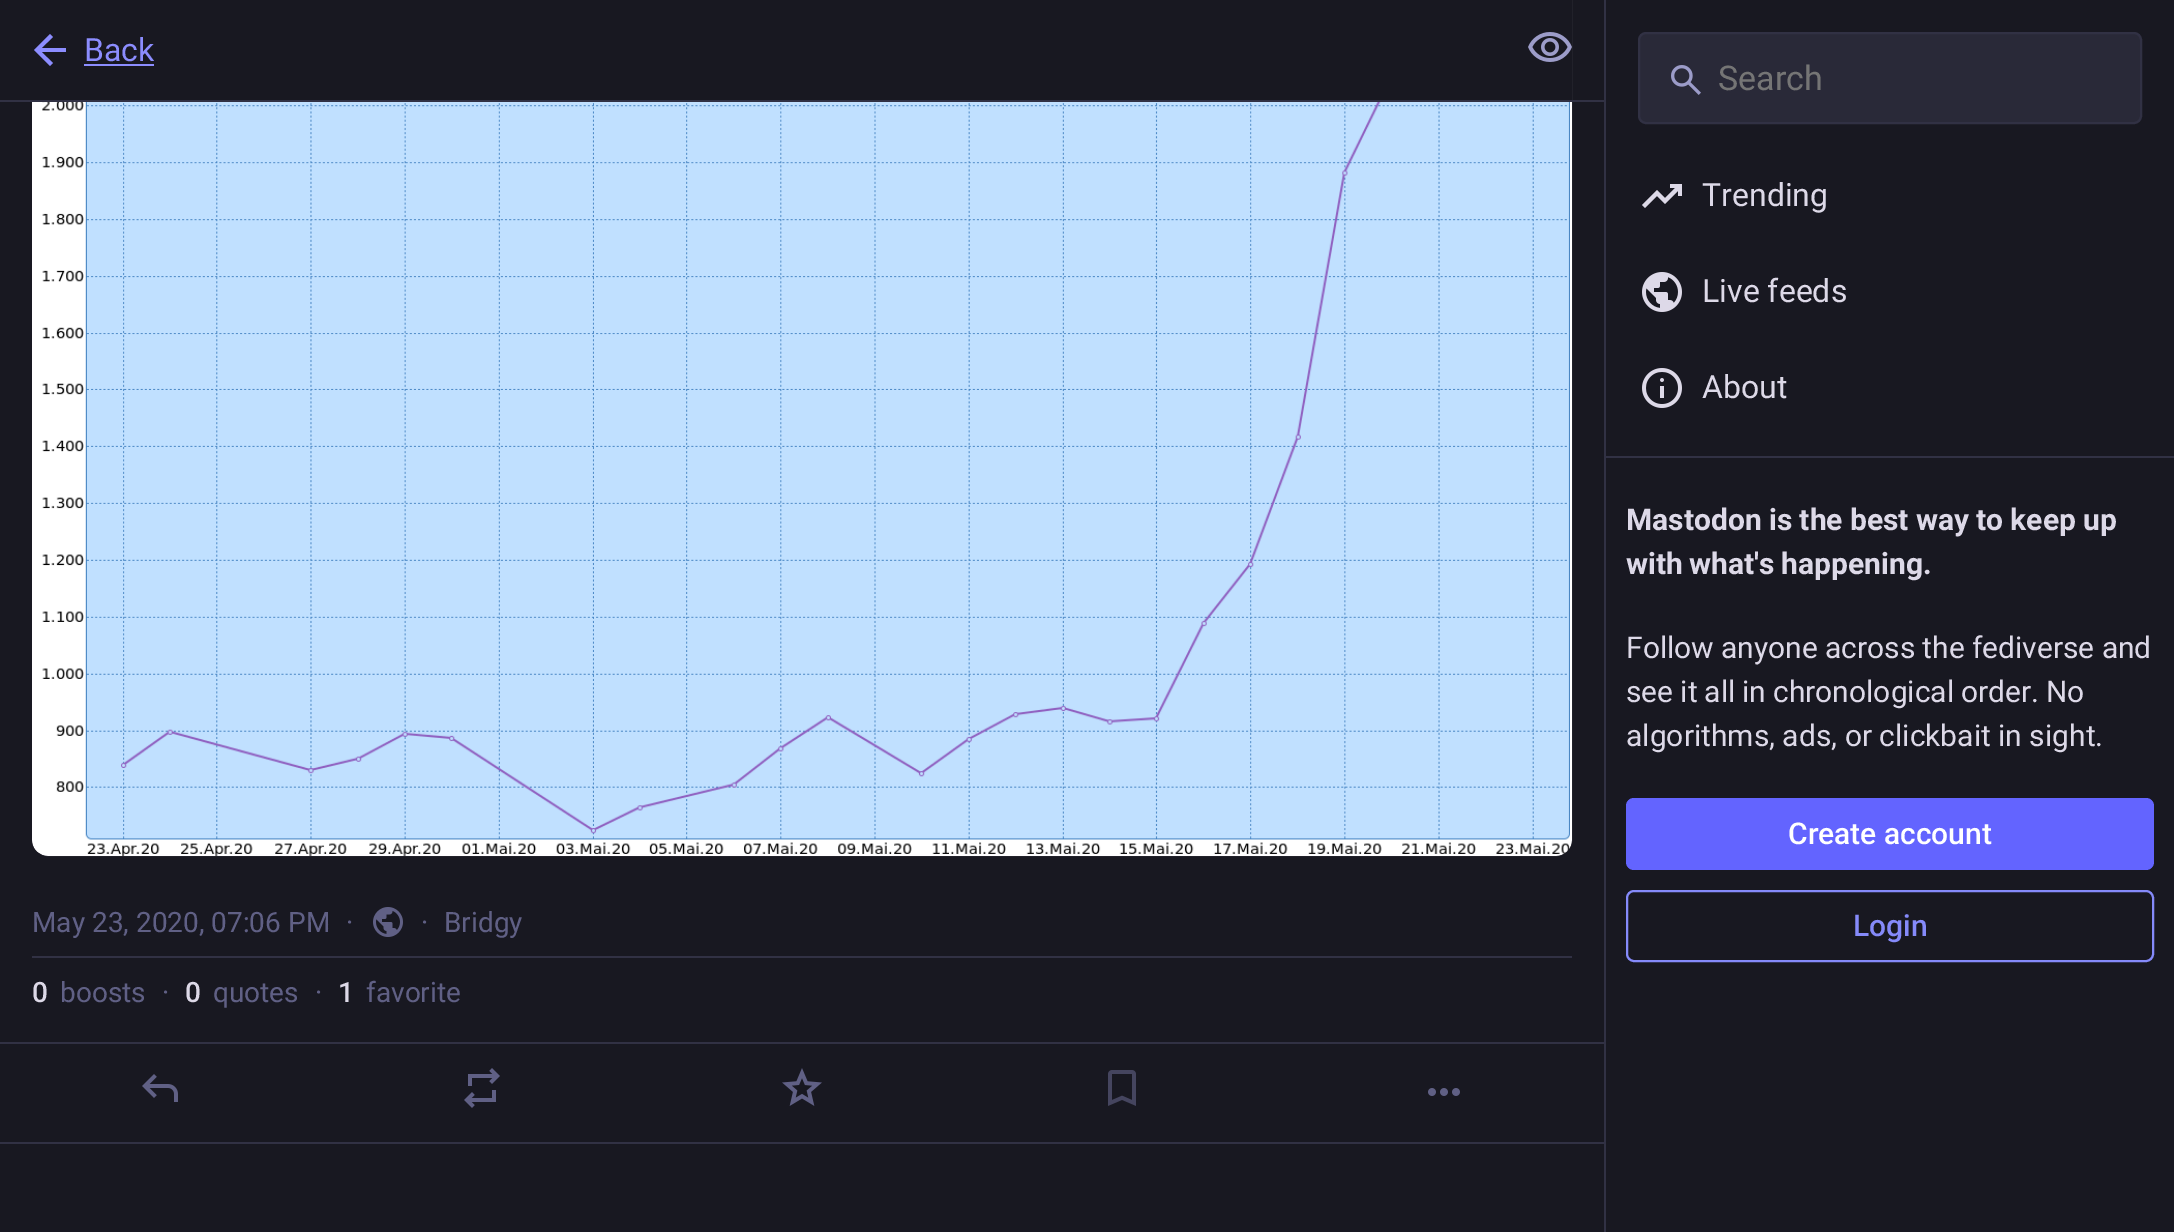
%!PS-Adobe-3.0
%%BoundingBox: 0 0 2174 1232
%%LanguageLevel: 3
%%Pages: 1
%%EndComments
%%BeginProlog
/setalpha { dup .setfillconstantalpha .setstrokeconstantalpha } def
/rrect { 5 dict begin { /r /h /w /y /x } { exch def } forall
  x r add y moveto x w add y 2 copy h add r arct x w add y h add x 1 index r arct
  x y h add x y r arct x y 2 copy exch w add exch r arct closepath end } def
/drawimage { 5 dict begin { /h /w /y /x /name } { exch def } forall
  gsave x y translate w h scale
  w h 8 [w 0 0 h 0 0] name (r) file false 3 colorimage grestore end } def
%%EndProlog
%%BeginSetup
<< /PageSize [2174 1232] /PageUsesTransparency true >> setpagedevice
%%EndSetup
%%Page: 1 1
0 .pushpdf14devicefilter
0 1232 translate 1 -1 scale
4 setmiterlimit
0.094 0.094 0.129 setrgbcolor
0 0 2174 1232 rectfill
(images/2.raw) 32 102 1540 754 drawimage
0.15 setalpha
0.988 0.973 1 setrgbcolor
2 setlinewidth
33 -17 1538 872 15 rrect stroke
1 setalpha
0.094 0.094 0.129 setrgbcolor
32 0 1540 100 rectfill
0.192 0.192 0.267 setrgbcolor
0 100 1604 2 rectfill
0.549 0.553 1 setrgbcolor
newpath 41.5 52 moveto 53 63 lineto 50 66 lineto 34 50 lineto 50 34 lineto 53 37 lineto 41.5 48 lineto 66 48 lineto 66 52 lineto closepath fill
84 64 70 2 rectfill
(images/1.raw) 1528 32 44 30 drawimage
0.192 0.192 0.267 setrgbcolor
32 956 1540 2 rectfill
(images/3.raw) 373 907 30 30 drawimage
0 1042 1604 2 rectfill
0 1142 1604 2 rectfill
(images/4.raw) 142 1074 36 28 drawimage
(images/5.raw) 464 1068 36 40 drawimage
(images/6.raw) 782 1068 40 38 drawimage
(images/7.raw) 1108 1070 28 36 drawimage
(images/8.raw) 1428 1088 32 8 drawimage
1604 0 2 1232 rectfill
0.161 0.161 0.22 setrgbcolor
1639 33 502 90 7 rrect gsave fill grestore
0.192 0.192 0.267 setrgbcolor
stroke
(images/9.raw) 1671 65 30 30 drawimage
0.867 0.851 0.91 setrgbcolor
newpath 1645 208 moveto 1642 205 lineto 1657 190 lineto 1665 198 lineto 1675 188 lineto 1670 188 lineto 1670 184 lineto 1682 184 lineto 1682 196 lineto 1678 196 lineto 1678 191 lineto 1665 204 lineto 1657 196 lineto closepath fill
(images/10.raw) 1642 272 40 40 drawimage
(images/11.raw) 1642 368 40 40 drawimage
0.192 0.192 0.267 setrgbcolor
1606 456 568 2 rectfill
0.388 0.392 1 setrgbcolor
1626 798 528 72 8 rrect fill
0.522 0.541 0.98 setrgbcolor
1627 891 526 70 7 rrect stroke
/Roboto-Regular [32 0 0 -32 0 0] selectfont
0.549 0.553 1 setrgbcolor
84 61 moveto (Back) show
/Roboto-Regular [28 0 0 -28 0 0] selectfont
0.376 0.376 0.522 setrgbcolor
32 932 moveto (May 23, 2020, 07:06 PM) show
346 932 moveto (·) show
421 932 moveto (·) show
444 932 moveto (Bridgy) show
/Roboto-Medium [28 0 0 -28 0 0] selectfont
0.867 0.851 0.91 setrgbcolor
32 1002 moveto (0) show
/Roboto-Regular [28 0 0 -28 0 0] selectfont
0.376 0.376 0.522 setrgbcolor
60 1002 moveto (boosts) show
162 1002 moveto (·) show
/Roboto-Medium [28 0 0 -28 0 0] selectfont
0.867 0.851 0.91 setrgbcolor
185 1002 moveto (0) show
/Roboto-Regular [28 0 0 -28 0 0] selectfont
0.376 0.376 0.522 setrgbcolor
213 1002 moveto (quotes) show
315 1002 moveto (·) show
/Roboto-Medium [28 0 0 -28 0 0] selectfont
0.867 0.851 0.91 setrgbcolor
338 1002 moveto (1) show
/Roboto-Regular [28 0 0 -28 0 0] selectfont
0.376 0.376 0.522 setrgbcolor
366 1002 moveto (favorite) show
/Roboto-Regular [34 0 0 -34 0 0] selectfont
0.459 setgray
1718 90 moveto (Search) show
/Roboto-Regular [32 0 0 -32 0 0] selectfont
0.867 0.851 0.91 setrgbcolor
1702 206 moveto (Trending) show
1702 302 moveto (Live feeds) show
1702 398 moveto (About) show
/Roboto-Bold [30 0 0 -30 0 0] selectfont
1626 530 moveto -0.25 0 32 (Mastodon is the best way to keep up) widthshow
1626 574 moveto -1 0 32 (with what's happening.) widthshow
/Roboto-Regular [30 0 0 -30 0 0] selectfont
1626 658 moveto -0.25 0 32 (Follow anyone across the fediverse and) widthshow
1626 702 moveto -0.5 0 32 (see it all in chronological order. No) widthshow
1626 746 moveto (algorithms, ads, or clickbait in sight.) show
/Roboto-Medium [30 0 0 -30 0 0] selectfont
1 setgray
1788 844 moveto (Create account) show
0.522 0.541 0.98 setrgbcolor
1853 936 moveto (Login) show
.poppdf14devicefilter showpage
%%EOF
